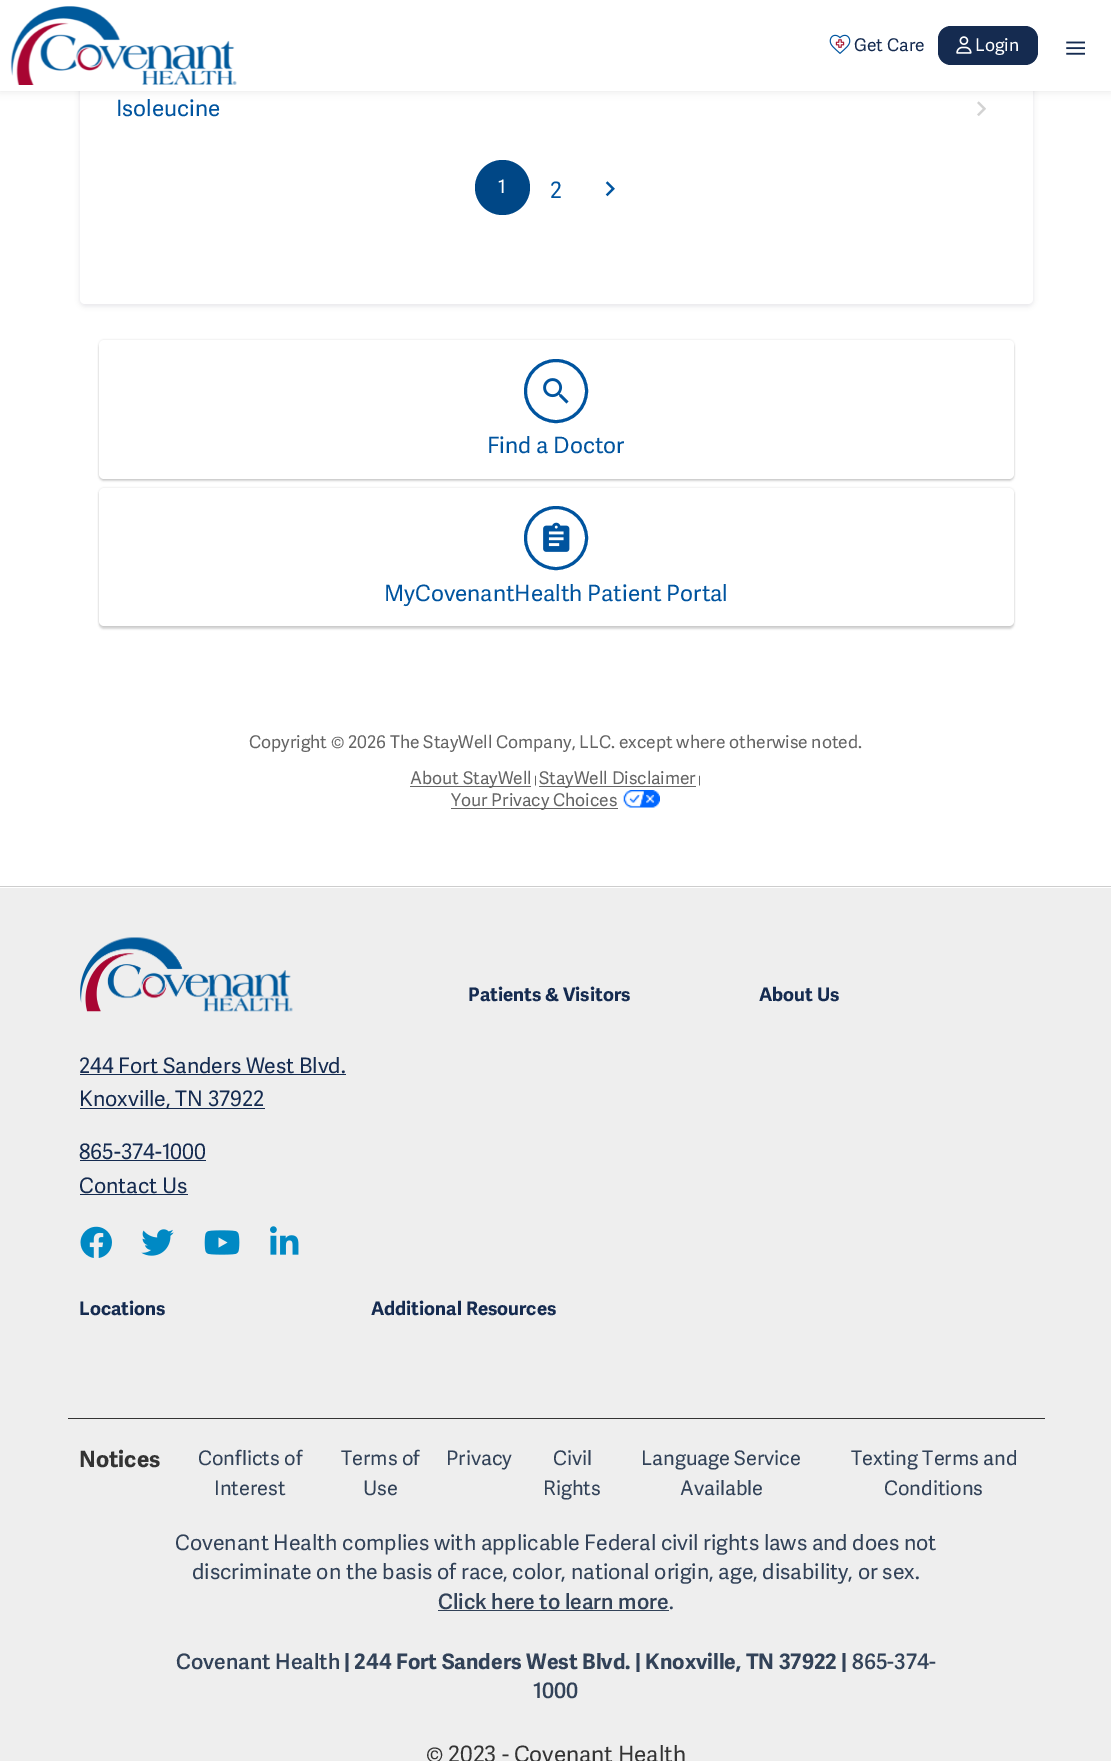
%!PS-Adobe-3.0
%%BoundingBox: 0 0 1111 1761
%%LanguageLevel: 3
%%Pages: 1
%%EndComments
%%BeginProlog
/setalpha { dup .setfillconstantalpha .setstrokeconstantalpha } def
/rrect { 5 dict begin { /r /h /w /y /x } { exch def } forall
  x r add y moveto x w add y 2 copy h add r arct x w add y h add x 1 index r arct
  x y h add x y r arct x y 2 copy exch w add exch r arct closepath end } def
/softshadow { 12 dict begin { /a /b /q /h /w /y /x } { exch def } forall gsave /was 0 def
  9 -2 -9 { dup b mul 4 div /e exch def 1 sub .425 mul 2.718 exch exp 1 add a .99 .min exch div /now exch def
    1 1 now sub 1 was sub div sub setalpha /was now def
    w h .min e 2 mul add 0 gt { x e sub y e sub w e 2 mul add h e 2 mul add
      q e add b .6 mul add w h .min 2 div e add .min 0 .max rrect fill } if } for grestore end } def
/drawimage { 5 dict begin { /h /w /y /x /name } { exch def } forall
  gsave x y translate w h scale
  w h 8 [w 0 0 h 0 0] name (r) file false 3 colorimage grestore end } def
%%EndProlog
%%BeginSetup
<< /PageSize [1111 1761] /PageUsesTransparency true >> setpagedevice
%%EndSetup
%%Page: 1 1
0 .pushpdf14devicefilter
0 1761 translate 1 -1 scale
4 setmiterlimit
1 setgray
0 0 1111 1761 rectfill
0.051 0 0.122 setrgbcolor
80 -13 953 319 5 2.5 0.1 softshadow
1 setgray
80 -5 953 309 5 rrect fill
(images/5.raw) 977 101 9 15 drawimage
0 setgray
0 0 1111 91 0 4.5 0.1 softshadow
1 setgray
0 0 1111 91 rectfill
(images/1.raw) 10 6 227 79 drawimage
(images/2.raw) 829 34 22 20 drawimage
0.082 0.169 0.314 setrgbcolor
938 26 100 39 13 rrect fill
(images/3.raw) 956 36 16 18 drawimage
(images/4.raw) 1066 41 19 14 drawimage
0 0.278 0.525 setrgbcolor
newpath 502.5 187.5 27.5 0 360 arc closepath fill
(images/6.raw) 605 181 10 16 drawimage
0 setgray
99 340 915 139 5 1 0.12 softshadow
99 343 915 138 5 1 0.16 softshadow
1 setgray
99 340 915 139 5 rrect fill
0 0.329 0.624 setrgbcolor
3 setlinewidth
newpath 556 391 30.5 0 360 arc closepath stroke
(images/7.raw) 543 378 26 26 drawimage
0 setgray
99 488 915 138 5 1 0.12 softshadow
99 490 915 139 5 1 0.16 softshadow
1 setgray
99 488 915 138 5 rrect fill
0 0.329 0.624 setrgbcolor
newpath 556 538 30.5 0 360 arc closepath stroke
(images/8.raw) 543 522 27 30 drawimage
0.396 setgray
410 786 121 1 rectfill
539 786 157 1 rectfill
451 808 167 1 rectfill
(images/9.raw) 623 790 37 18 drawimage
0.933 setgray
0 888 1111 873 rectfill
0.804 setgray
0 886 1111 1 rectfill
(images/10.raw) 80 937 213 75 drawimage
0.082 0.169 0.314 setrgbcolor
80 1074 266 1 rectfill
80 1108 185 1 rectfill
80 1160 126 1 rectfill
80 1194 108 1 rectfill
(images/11.raw) 80 1226 32 32 drawimage
(images/12.raw) 141 1229 33 27 drawimage
(images/13.raw) 204 1230 36 25 drawimage
(images/14.raw) 270 1226 29 29 drawimage
0.2 setgray
68 1418 977 1 rectfill
0.196 0.259 0.345 setrgbcolor
438 1610 231 1 rectfill
/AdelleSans-Regular [17.5 0 0 -17.5 0 0] selectfont
0.082 0.169 0.314 setrgbcolor
854 51 moveto (Get Care) show
1 setgray
975 51 moveto (Login) show
/AdelleSans-Regular [22.5 0 0 -22.5 0 0] selectfont
0 0.329 0.624 setrgbcolor
116 116 moveto (Isoleucine) show
/AdelleSans-Regular [18.75 0 0 -18.75 0 0] selectfont
1 setgray
498 193 moveto (1) show
/AdelleSans-Regular [22.5 0 0 -22.5 0 0] selectfont
0 0.329 0.624 setrgbcolor
550 198 moveto (2) show
487 453 moveto (Find a Doctor) show
384 601 moveto (MyCovenantHealth Patient Portal) show
/AdelleSans-Regular [17.5 0 0 -17.5 0 0] selectfont
0.396 setgray
249 748 moveto (Copyright © 2026 The StayWell Company, LLC. except where otherwise noted.) show
410 784 moveto (About StayWell) show
/AdelleSans-Regular [11 0 0 -11 0 0] selectfont
534 784 moveto (|) show
/AdelleSans-Regular [17.5 0 0 -17.5 0 0] selectfont
539 784 moveto (StayWell Disclaimer) show
/AdelleSans-Regular [11 0 0 -11 0 0] selectfont
698 784 moveto (|) show
/AdelleSans-Regular [17.5 0 0 -17.5 0 0] selectfont
451 806 moveto (Your Privacy Choices) show
/AdelleSans-Bold [18.75 0 0 -18.75 0 0] selectfont
0.082 0.169 0.314 setrgbcolor
468 1001 moveto (Patients & Visitors) show
759 1001 moveto (About Us) show
/AdelleSans-Regular [21.25 0 0 -21.25 0 0] selectfont
79 1073 moveto (244 Fort Sanders West Blvd.) show
79 1106 moveto (Knoxville, TN 37922) show
79 1159 moveto (865-374-1000) show
79 1193 moveto (Contact Us) show
/AdelleSans-Bold [18.75 0 0 -18.75 0 0] selectfont
79 1315 moveto (Locations) show
371 1315 moveto (Additional Resources) show
/AdelleSans-Bold [22.5 0 0 -22.5 0 0] selectfont
0.2 setgray
79 1467 moveto (Notices) show
/AdelleSans-Regular [20 0 0 -20 0 0] selectfont
0.196 0.259 0.345 setrgbcolor
198 1465 moveto (Conflicts of) show
214 1495 moveto (Interest) show
341 1465 moveto (Terms of) show
363 1495 moveto (Use) show
446 1465 moveto (Privacy) show
553 1465 moveto (Civil) show
543 1495 moveto (Rights) show
641 1465 moveto (Language Service) show
680 1495 moveto (Available) show
851 1465 moveto (Texting Terms and) show
884 1495 moveto (Conditions) show
/AdelleSans-Regular [21.25 0 0 -21.25 0 0] selectfont
175 1550 moveto (Covenant Health complies with applicable Federal civil rights laws and does not) show
192 1579 moveto (discriminate on the basis of race, color, national origin, age, disability, or sex.) show
/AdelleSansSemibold-SemiBold [21.25 0 0 -21.25 0 0] selectfont
438 1609 moveto (Click here to learn more) show
/AdelleSans-Regular [21.25 0 0 -21.25 0 0] selectfont
669 1609 moveto (.) show
/AdelleSansSemibold-SemiBold [21.25 0 0 -21.25 0 0] selectfont
176 1669 moveto (Covenant Health) show
/AdelleSans-Bold [21.25 0 0 -21.25 0 0] selectfont
344 1669 moveto (| 244 Fort Sanders West Blvd. | Knoxville, TN 37922 |) show
/AdelleSansSemibold-SemiBold [21.25 0 0 -21.25 0 0] selectfont
852 1669 moveto (865-374-) show
533 1698 moveto (1000) show
/AdelleSans-Regular [22.5 0 0 -22.5 0 0] selectfont
0.2 setgray
426 1762 moveto (© 2023 - Covenant Health) show
.poppdf14devicefilter showpage
%%EOF
